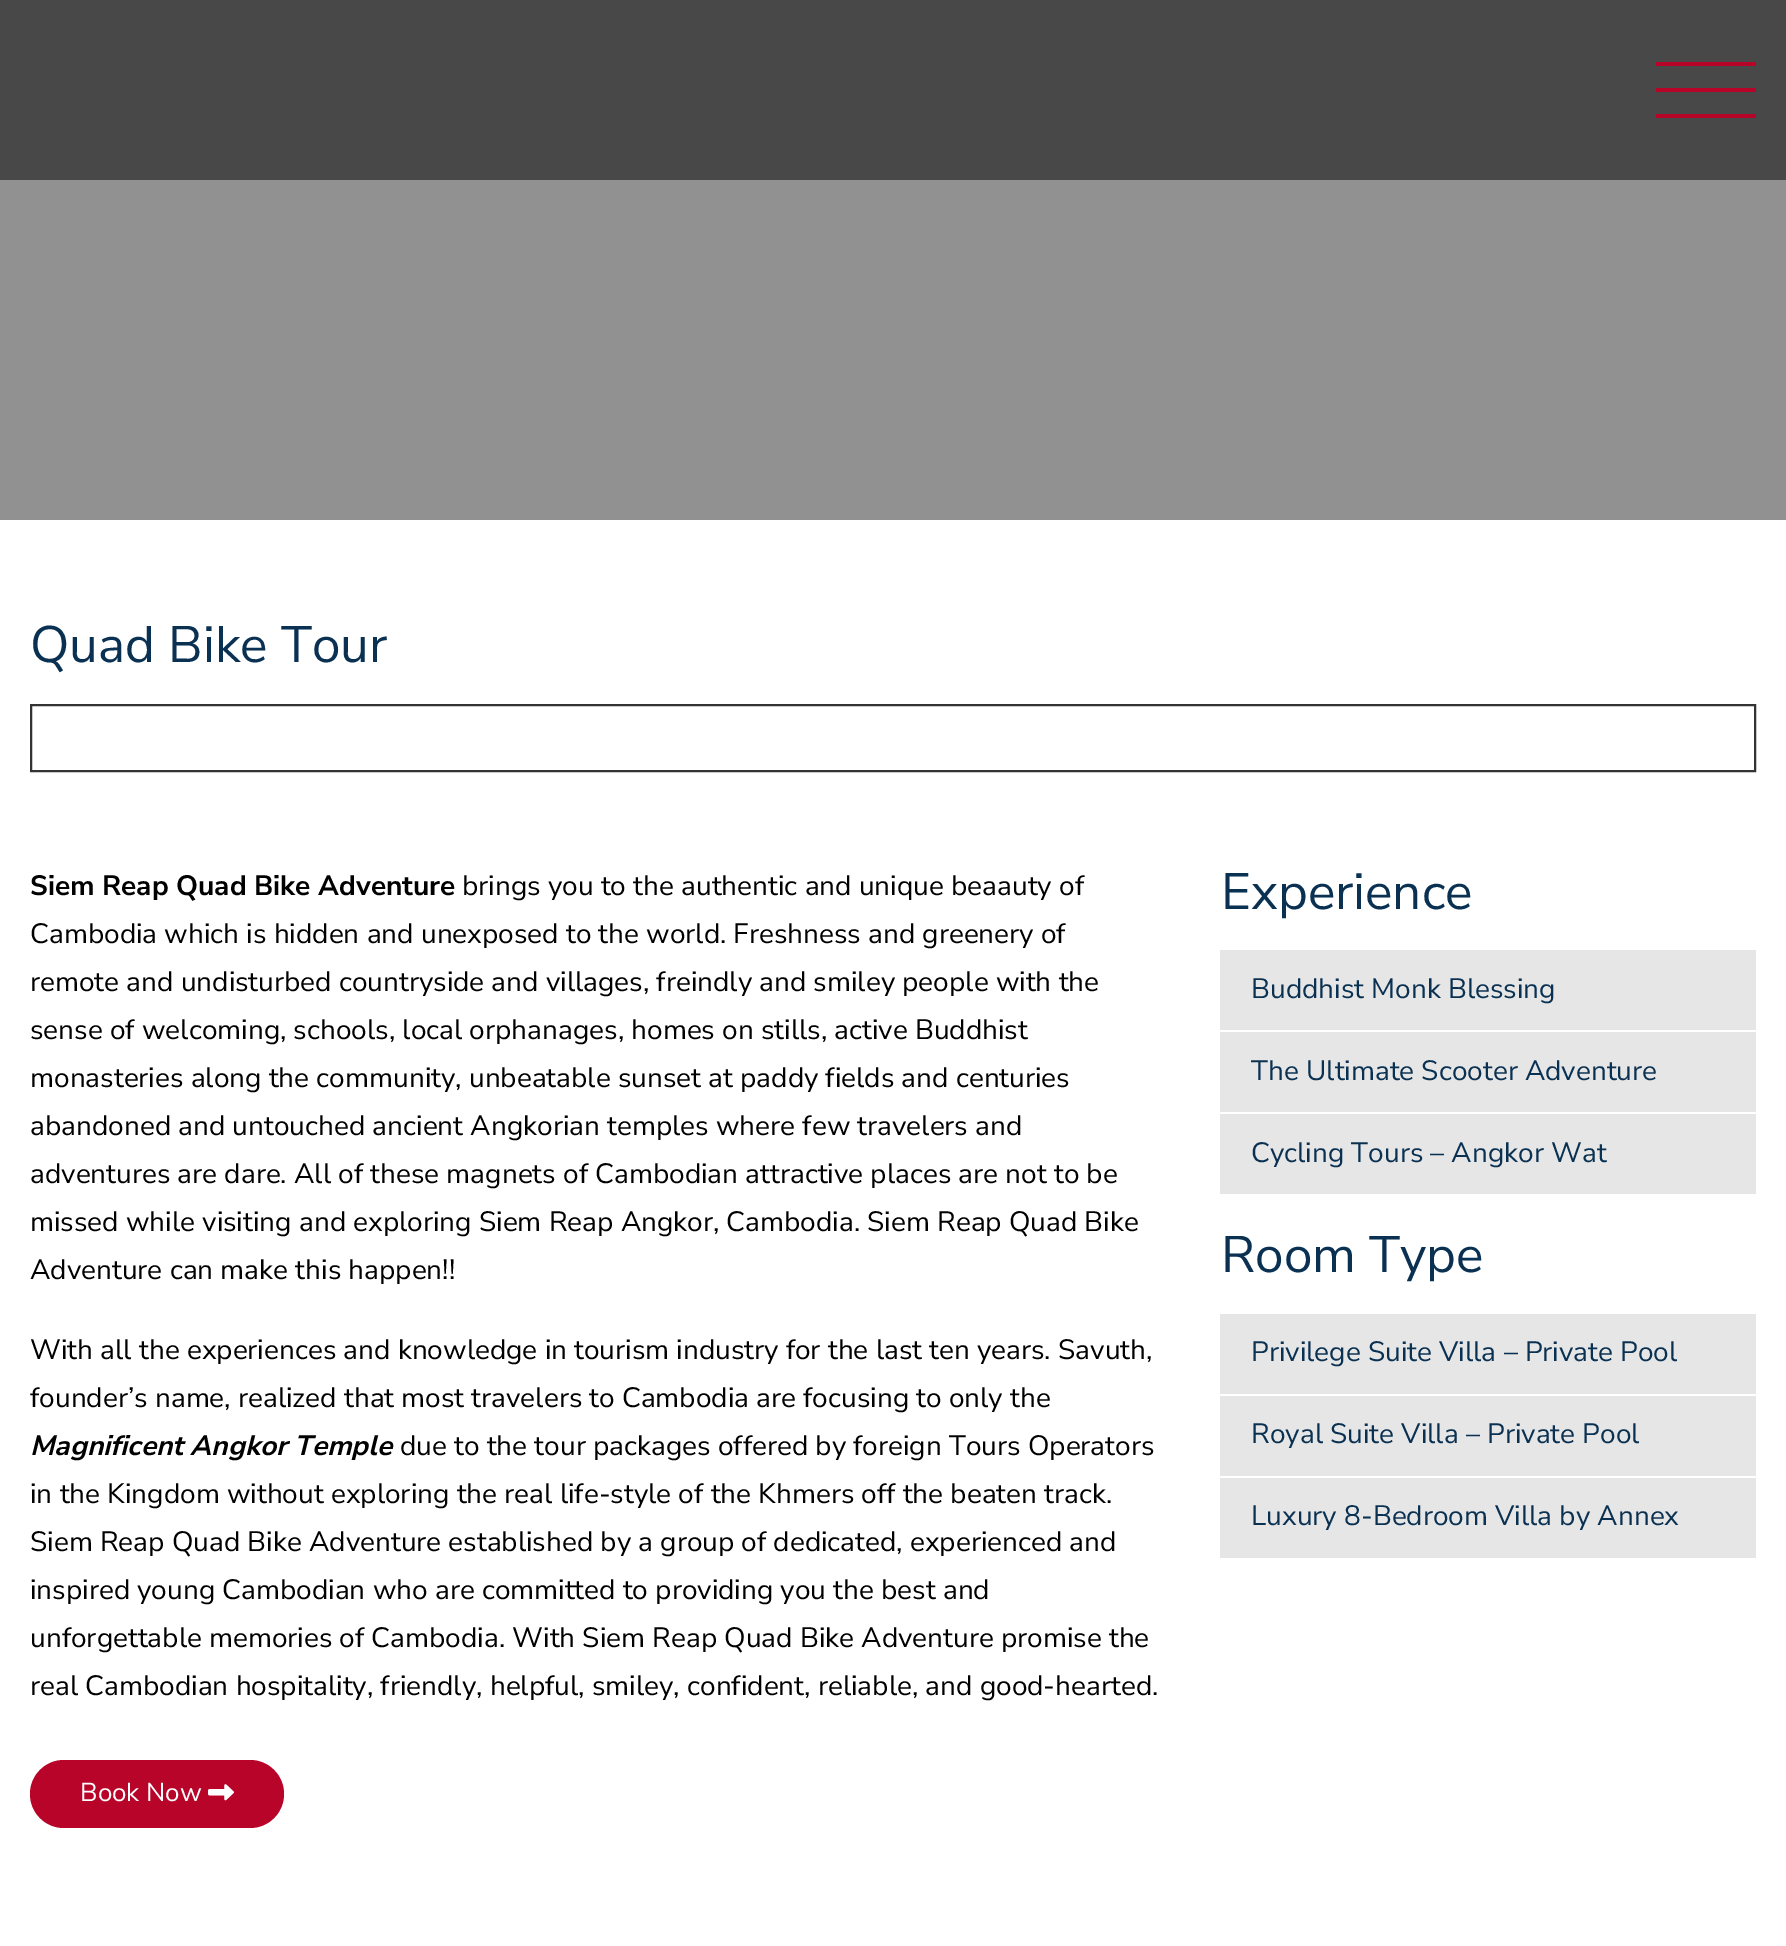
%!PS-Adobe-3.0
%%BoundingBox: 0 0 1786 1946
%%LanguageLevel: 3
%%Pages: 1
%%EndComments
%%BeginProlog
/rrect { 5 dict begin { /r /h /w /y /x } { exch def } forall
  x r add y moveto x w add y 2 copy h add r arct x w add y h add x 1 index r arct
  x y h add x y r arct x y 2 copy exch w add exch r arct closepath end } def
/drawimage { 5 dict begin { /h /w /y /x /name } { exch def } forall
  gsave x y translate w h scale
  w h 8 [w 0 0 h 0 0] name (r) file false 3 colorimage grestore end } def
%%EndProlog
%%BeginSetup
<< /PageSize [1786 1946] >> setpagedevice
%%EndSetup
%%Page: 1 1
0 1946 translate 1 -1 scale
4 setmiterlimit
1 setgray
0 0 1786 1946 rectfill
0.282 setgray
0 0 1786 180 rectfill
0.722 0.016 0.161 setrgbcolor
1656 62 100 4 rectfill
1656 88 100 4 rectfill
1656 114 100 4 rectfill
0.569 setgray
0 180 1786 340 rectfill
0.2 setgray
2 setlinewidth
31 705 1724 66 rectstroke
0.722 0.016 0.161 setrgbcolor
30 1760 254 68 34 rrect fill
(images/1.raw) 208 1784 26 17 drawimage
0.902 setgray
1220 950 536 80 rectfill
1220 1032 536 80 rectfill
1220 1114 536 80 rectfill
1220 1314 536 80 rectfill
1220 1396 536 80 rectfill
1220 1478 536 80 rectfill
/NunitoSans-Regular [51.25 0 0 -51.25 0 0] selectfont
0.039 0.192 0.322 setrgbcolor
30 662 moveto (Quad Bike Tour) show
/NunitoSans-Bold [28 0 0 -28 0 0] selectfont
0 setgray
30 895 moveto (Siem Reap Quad Bike Adventure) show
/NunitoSans-Regular [28 0 0 -28 0 0] selectfont
462 895 moveto (brings you to the authentic and unique beaauty of) show
30 943 moveto (Cambodia which is hidden and unexposed to the world. Freshness and greenery of) show
30 991 moveto (remote and undisturbed countryside and villages, freindly and smiley people with the) show
30 1039 moveto (sense of welcoming, schools, local orphanages, homes on stills, active Buddhist) show
30 1087 moveto (monasteries along the community, unbeatable sunset at paddy fields and centuries) show
30 1135 moveto (abandoned and untouched ancient Angkorian temples where few travelers and) show
30 1183 moveto (adventures are dare. All of these magnets of Cambodian attractive places are not to be) show
30 1231 moveto (missed while visiting and exploring Siem Reap Angkor, Cambodia. Siem Reap Quad Bike) show
30 1279 moveto (Adventure can make this happen!!) show
30 1359 moveto (With all the experiences and knowledge in tourism industry for the last ten years. Savuth,) show
30 1407 moveto (founder’s name, realized that most travelers to Cambodia are focusing to only the) show
/NunitoSans-BoldItalic [28 0 0 -28 0 0] selectfont
30 1455 moveto (Magnificent Angkor Temple) show
/NunitoSans-Regular [28 0 0 -28 0 0] selectfont
400 1455 moveto (due to the tour packages offered by foreign Tours Operators) show
30 1503 moveto (in the Kingdom without exploring the real life-style of the Khmers off the beaten track.) show
30 1551 moveto (Siem Reap Quad Bike Adventure established by a group of dedicated, experienced and) show
30 1599 moveto (inspired young Cambodian who are committed to providing you the best and) show
30 1647 moveto (unforgettable memories of Cambodia. With Siem Reap Quad Bike Adventure promise the) show
30 1695 moveto (real Cambodian hospitality, friendly, helpful, smiley, confident, reliable, and good-hearted.) show
/NunitoSans-Regular [26 0 0 -26 0 0] selectfont
1 setgray
80 1801 moveto (Book Now) show
/NunitoSans-Regular [51.25 0 0 -51.25 0 0] selectfont
0.039 0.192 0.322 setrgbcolor
1221 909 moveto (Experience) show
/NunitoSans-Regular [28 0 0 -28 0 0] selectfont
1251 998 moveto (Buddhist Monk Blessing) show
1251 1080 moveto (The Ultimate Scooter Adventure) show
1251 1162 moveto (Cycling Tours – Angkor Wat) show
/NunitoSans-Regular [51.25 0 0 -51.25 0 0] selectfont
1221 1272 moveto (Room Type) show
/NunitoSans-Regular [28 0 0 -28 0 0] selectfont
1251 1361 moveto (Privilege Suite Villa – Private Pool) show
1251 1443 moveto (Royal Suite Villa – Private Pool) show
1251 1525 moveto (Luxury 8-Bedroom Villa by Annex) show
showpage
%%EOF
